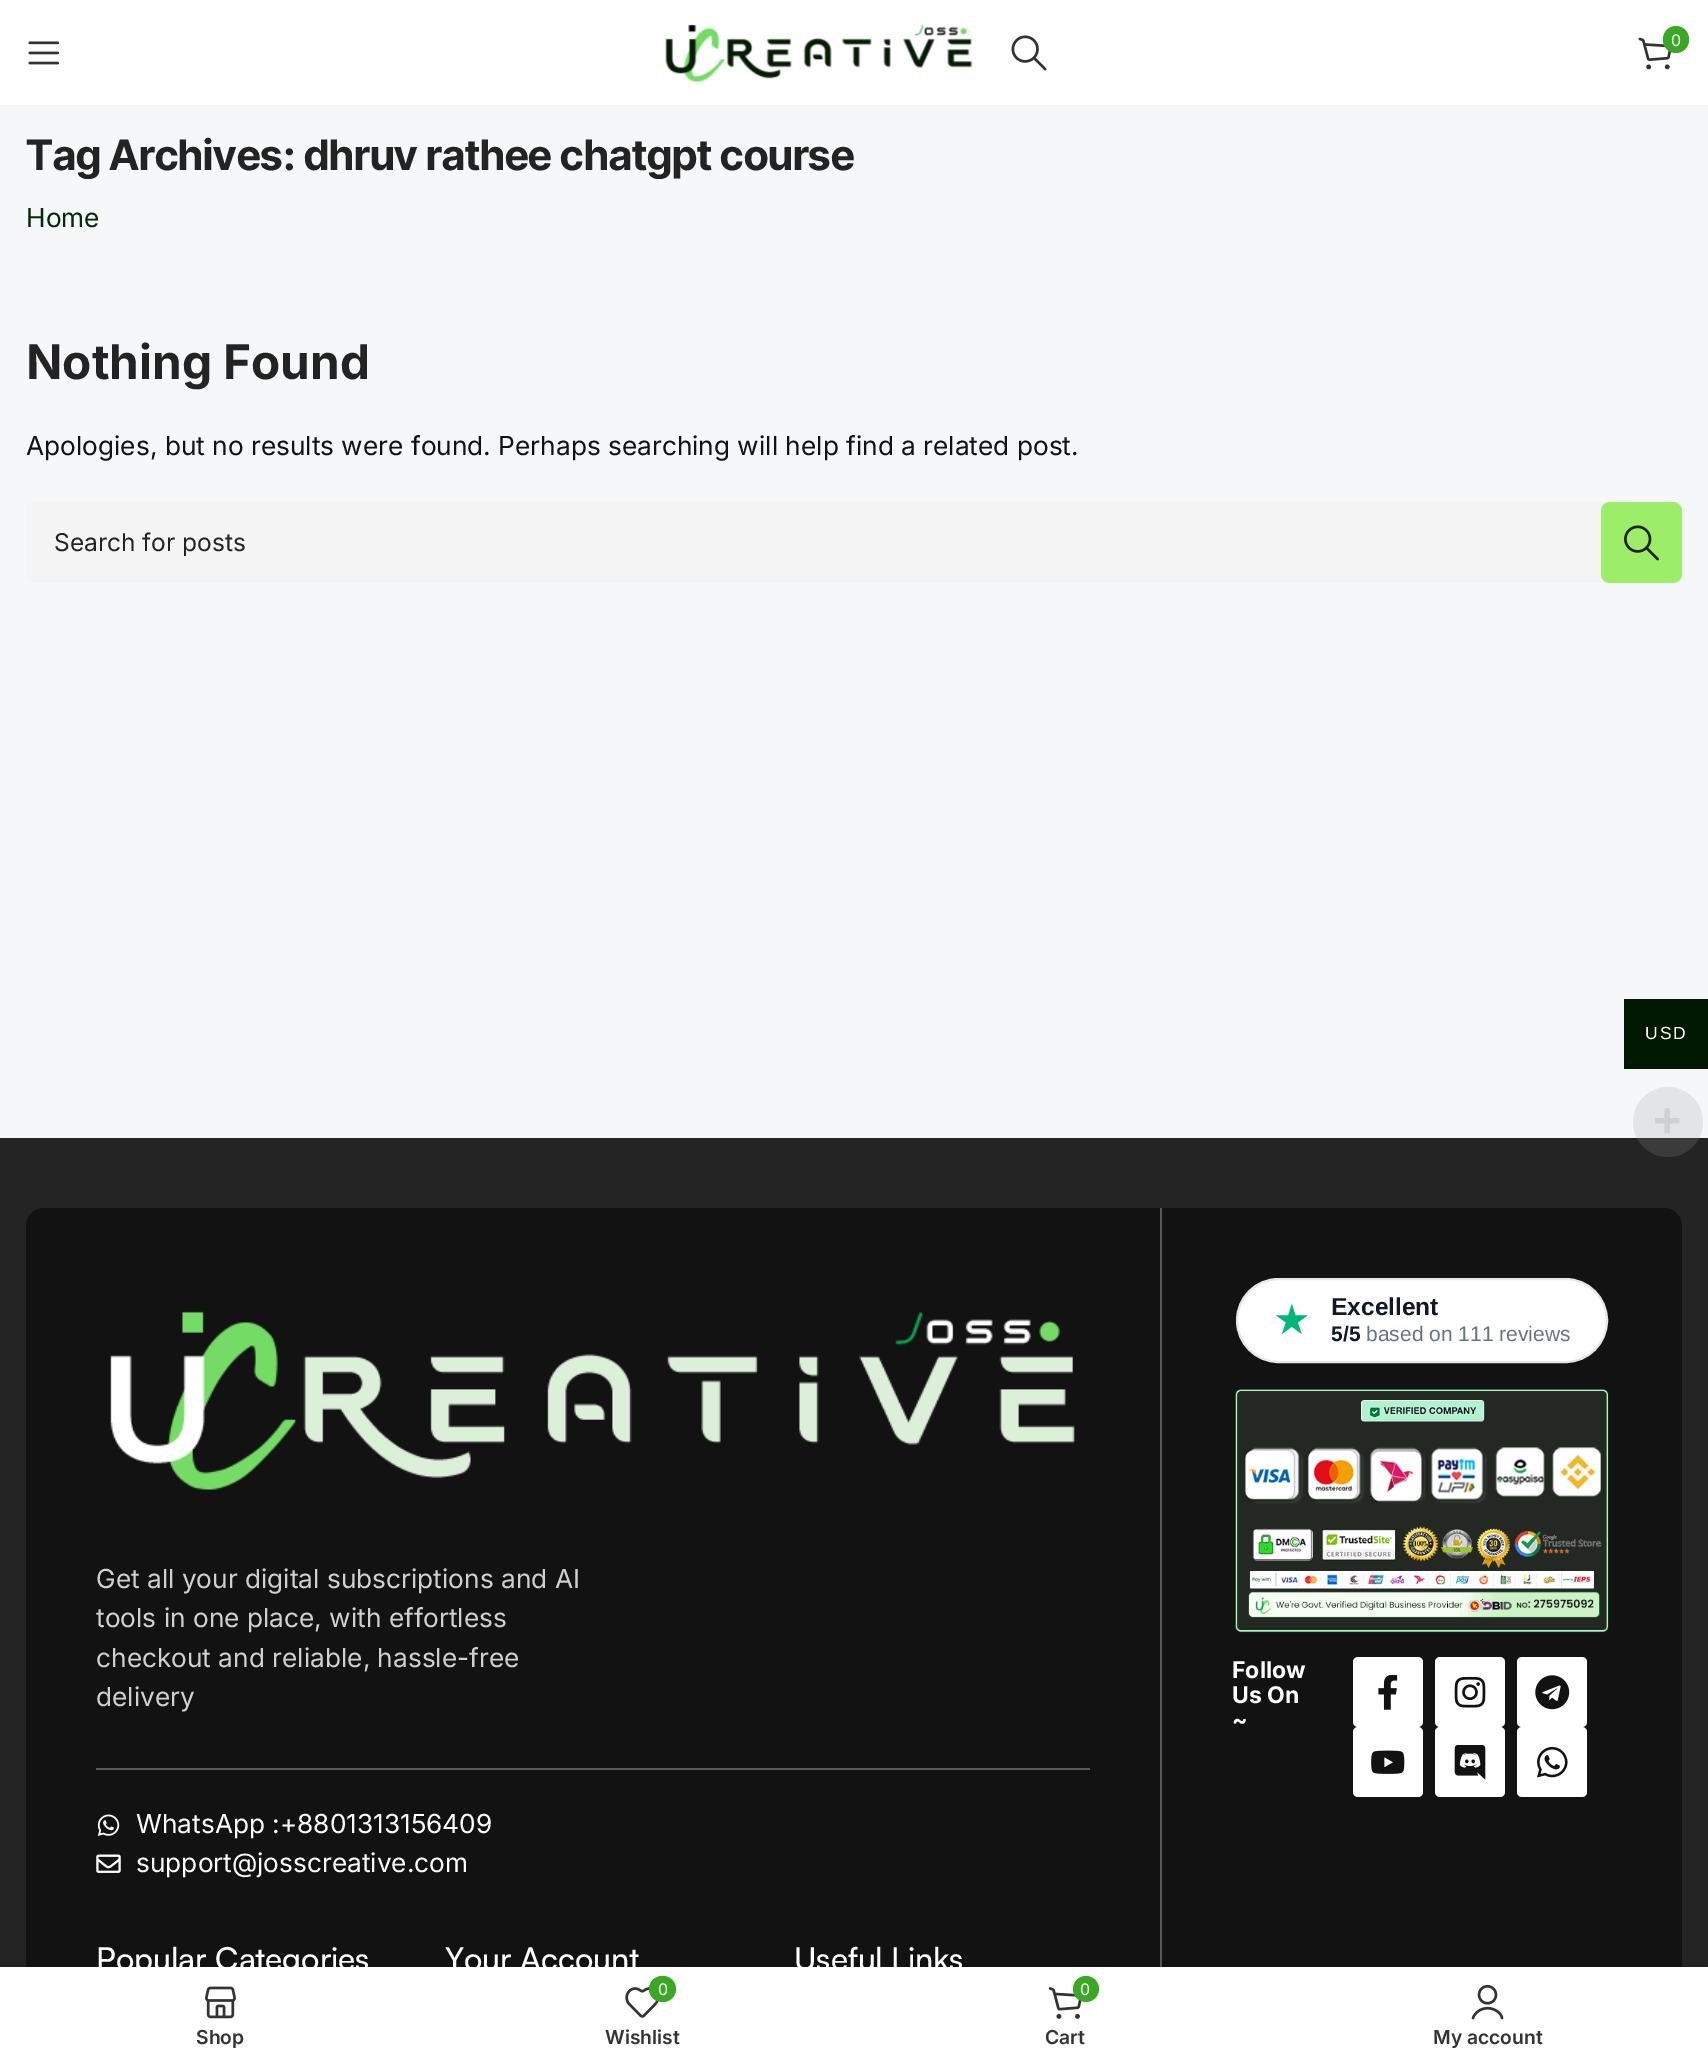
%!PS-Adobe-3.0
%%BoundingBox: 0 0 1708 2063
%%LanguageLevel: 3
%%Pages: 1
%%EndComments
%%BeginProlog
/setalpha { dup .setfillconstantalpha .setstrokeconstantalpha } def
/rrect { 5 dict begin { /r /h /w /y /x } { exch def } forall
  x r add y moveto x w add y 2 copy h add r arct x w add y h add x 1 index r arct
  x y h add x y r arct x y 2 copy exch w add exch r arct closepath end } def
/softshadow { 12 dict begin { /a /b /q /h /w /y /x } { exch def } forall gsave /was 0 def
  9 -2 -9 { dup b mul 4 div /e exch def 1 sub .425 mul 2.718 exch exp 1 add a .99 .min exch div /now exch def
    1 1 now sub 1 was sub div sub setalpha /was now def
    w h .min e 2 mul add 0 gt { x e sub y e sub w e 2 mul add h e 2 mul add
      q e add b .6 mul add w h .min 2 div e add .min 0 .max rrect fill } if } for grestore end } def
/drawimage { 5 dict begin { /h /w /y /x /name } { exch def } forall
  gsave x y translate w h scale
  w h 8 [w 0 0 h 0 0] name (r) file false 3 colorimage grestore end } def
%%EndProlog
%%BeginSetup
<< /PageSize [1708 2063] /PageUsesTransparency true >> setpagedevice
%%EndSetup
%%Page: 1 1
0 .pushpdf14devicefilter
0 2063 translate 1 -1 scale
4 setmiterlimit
1 setgray
0 0 1708 2063 rectfill
(images/1.raw) 28 41 31 24 drawimage
(images/2.raw) 665 24 308 59 drawimage
(images/3.raw) 1011 35 36 36 drawimage
(images/4.raw) 1638 37 33 33 drawimage
0.227 0.659 0.141 setrgbcolor
1663 26 26 27 13 rrect fill
0.961 0.969 0.973 setrgbcolor
0 105 1708 1033 rectfill
0.957 setgray
26 502 1656 81 9 rrect fill
0.612 0.933 0.412 setrgbcolor
1601 502 81 81 9 rrect fill
(images/5.raw) 1624 525 35 36 drawimage
0.141 setgray
0 1138 1708 829 rectfill
0.071 setgray
26 1208 1656 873 18 rrect fill
0.349 setgray
1160 1208 2 759 rectfill
1 setgray
1237 1279 370 83 41.5 rrect gsave fill grestore
0.898 0.906 0.922 setrgbcolor
2 setlinewidth
stroke
(images/6.raw) 1235 1389 374 244 drawimage
1 setgray
1353 1657 70 70 5 rrect fill
(images/7.raw) 1378 1675 20 35 drawimage
1435 1657 70 70 5 rrect fill
(images/8.raw) 1454 1676 32 32 drawimage
1517 1657 70 70 5 rrect fill
(images/9.raw) 1535 1675 35 35 drawimage
1353 1727 70 70 5 rrect fill
(images/10.raw) 1371 1750 34 24 drawimage
1435 1727 70 70 5 rrect fill
(images/11.raw) 1454 1745 32 35 drawimage
1517 1727 70 70 5 rrect fill
(images/12.raw) 1537 1746 31 32 drawimage
(images/13.raw) 110 1311 965 179 drawimage
0.349 setgray
96 1768 994 2 rectfill
(images/14.raw) 97 1814 23 22 drawimage
(images/15.raw) 96 1854 25 19 drawimage
0.004 0.094 0.004 setrgbcolor
1624 999 84 70 rectfill
0.2 setalpha
0.6 setgray
newpath 1668 1122 35 0 360 arc closepath fill
1 setalpha
0 setgray
0 1967 1708 96 0 8 0.12 softshadow
1 setgray
0 1967 1708 96 rectfill
(images/16.raw) 205 1986 31 33 drawimage
(images/17.raw) 625 1987 34 31 drawimage
0.227 0.659 0.141 setrgbcolor
649 1976 27 26 13 rrect fill
(images/18.raw) 1048 1987 34 32 drawimage
newpath 1086 1989 13 0 360 arc closepath fill
(images/19.raw) 1471 1984 33 36 drawimage
/Inter-Regular [16 0 0 -16 0 0] selectfont
1 setgray
1671 46 moveto (0) show
/InterTight-Bold [42 0 0 -42 0 0] selectfont
0.137 setgray
26 170 moveto (Tag Archives: dhruv rathee chatgpt course) show
/Inter-Regular [26.25 0 0 -26.25 0 0] selectfont
0.008 0.165 0.027 setrgbcolor
26 227 moveto (Home) show
/Inter-Bold [47.75 0 0 -47.75 0 0] selectfont
0.137 setgray
26 379 moveto (Nothing Found) show
/Inter-Regular [26.25 0 0 -26.25 0 0] selectfont
0.071 setgray
26 455 moveto (Apologies, but no results were found. Perhaps searching will help find a related post.) show
/Inter-Regular [24.5 0 0 -24.5 0 0] selectfont
0.137 setgray
54 551 moveto (Search for posts) show
/DejaVuSans-Regular [42 0 0 -42 0 0] selectfont
0 0.714 0.478 setrgbcolor
1273 1334 moveto (★) show
/LiberationSans-Bold [24.5 0 0 -24.5 0 0] selectfont
0.067 0.094 0.153 setrgbcolor
1331 1315 moveto (Excellent) show
/LiberationSans-Bold [21 0 0 -21 0 0] selectfont
1331 1341 moveto (5/5) show
/LiberationSans-Regular [21 0 0 -21 0 0] selectfont
0.42 0.447 0.502 setrgbcolor
1366 1341 moveto (based on 111 reviews) show
/Inter-Bold [23 0 0 -23 0 0] selectfont
1 setgray
1232 1678 moveto (Follow) show
1232 1703 moveto (Us On) show
1232 1728 moveto (~) show
/Inter-Regular [26.25 0 0 -26.25 0 0] selectfont
0.816 setgray
96 1588 moveto (Get all your digital subscriptions and AI) show
96 1627 moveto (tools in one place, with effortless) show
96 1667 moveto (checkout and reliable, hassle-free) show
96 1706 moveto (delivery) show
1 setgray
136 1833 moveto (WhatsApp :+8801313156409) show
136 1872 moveto (support@josscreative.com) show
/Satoshi-Medium [31.5 0 0 -31.5 0 0] selectfont
96 1970 moveto (Popular Categories) show
445 1970 moveto (Your Account) show
794 1970 moveto (Useful Links) show
/LiberationSans-Regular [17.5 0 0 -17.5 0 0] selectfont
1645 1039 moveto 2 0 (USD) ashow
/LiberationSans-Bold [49 0 0 -49 0 0] selectfont
0.816 setgray
1653 1137 moveto (+) show
/Inter-SemiBold [19.25 0 0 -19.25 0 0] selectfont
0.2 setgray
196 2044 moveto (Shop) show
/Inter-Regular [16 0 0 -16 0 0] selectfont
1 setgray
658 1995 moveto (0) show
/Inter-SemiBold [19.25 0 0 -19.25 0 0] selectfont
0.2 setgray
605 2044 moveto (Wishlist) show
/Inter-Regular [16 0 0 -16 0 0] selectfont
1 setgray
1080 1995 moveto (0) show
/Inter-SemiBold [19.25 0 0 -19.25 0 0] selectfont
0.2 setgray
1045 2044 moveto (Cart) show
1433 2044 moveto (My account) show
.poppdf14devicefilter showpage
%%EOF
